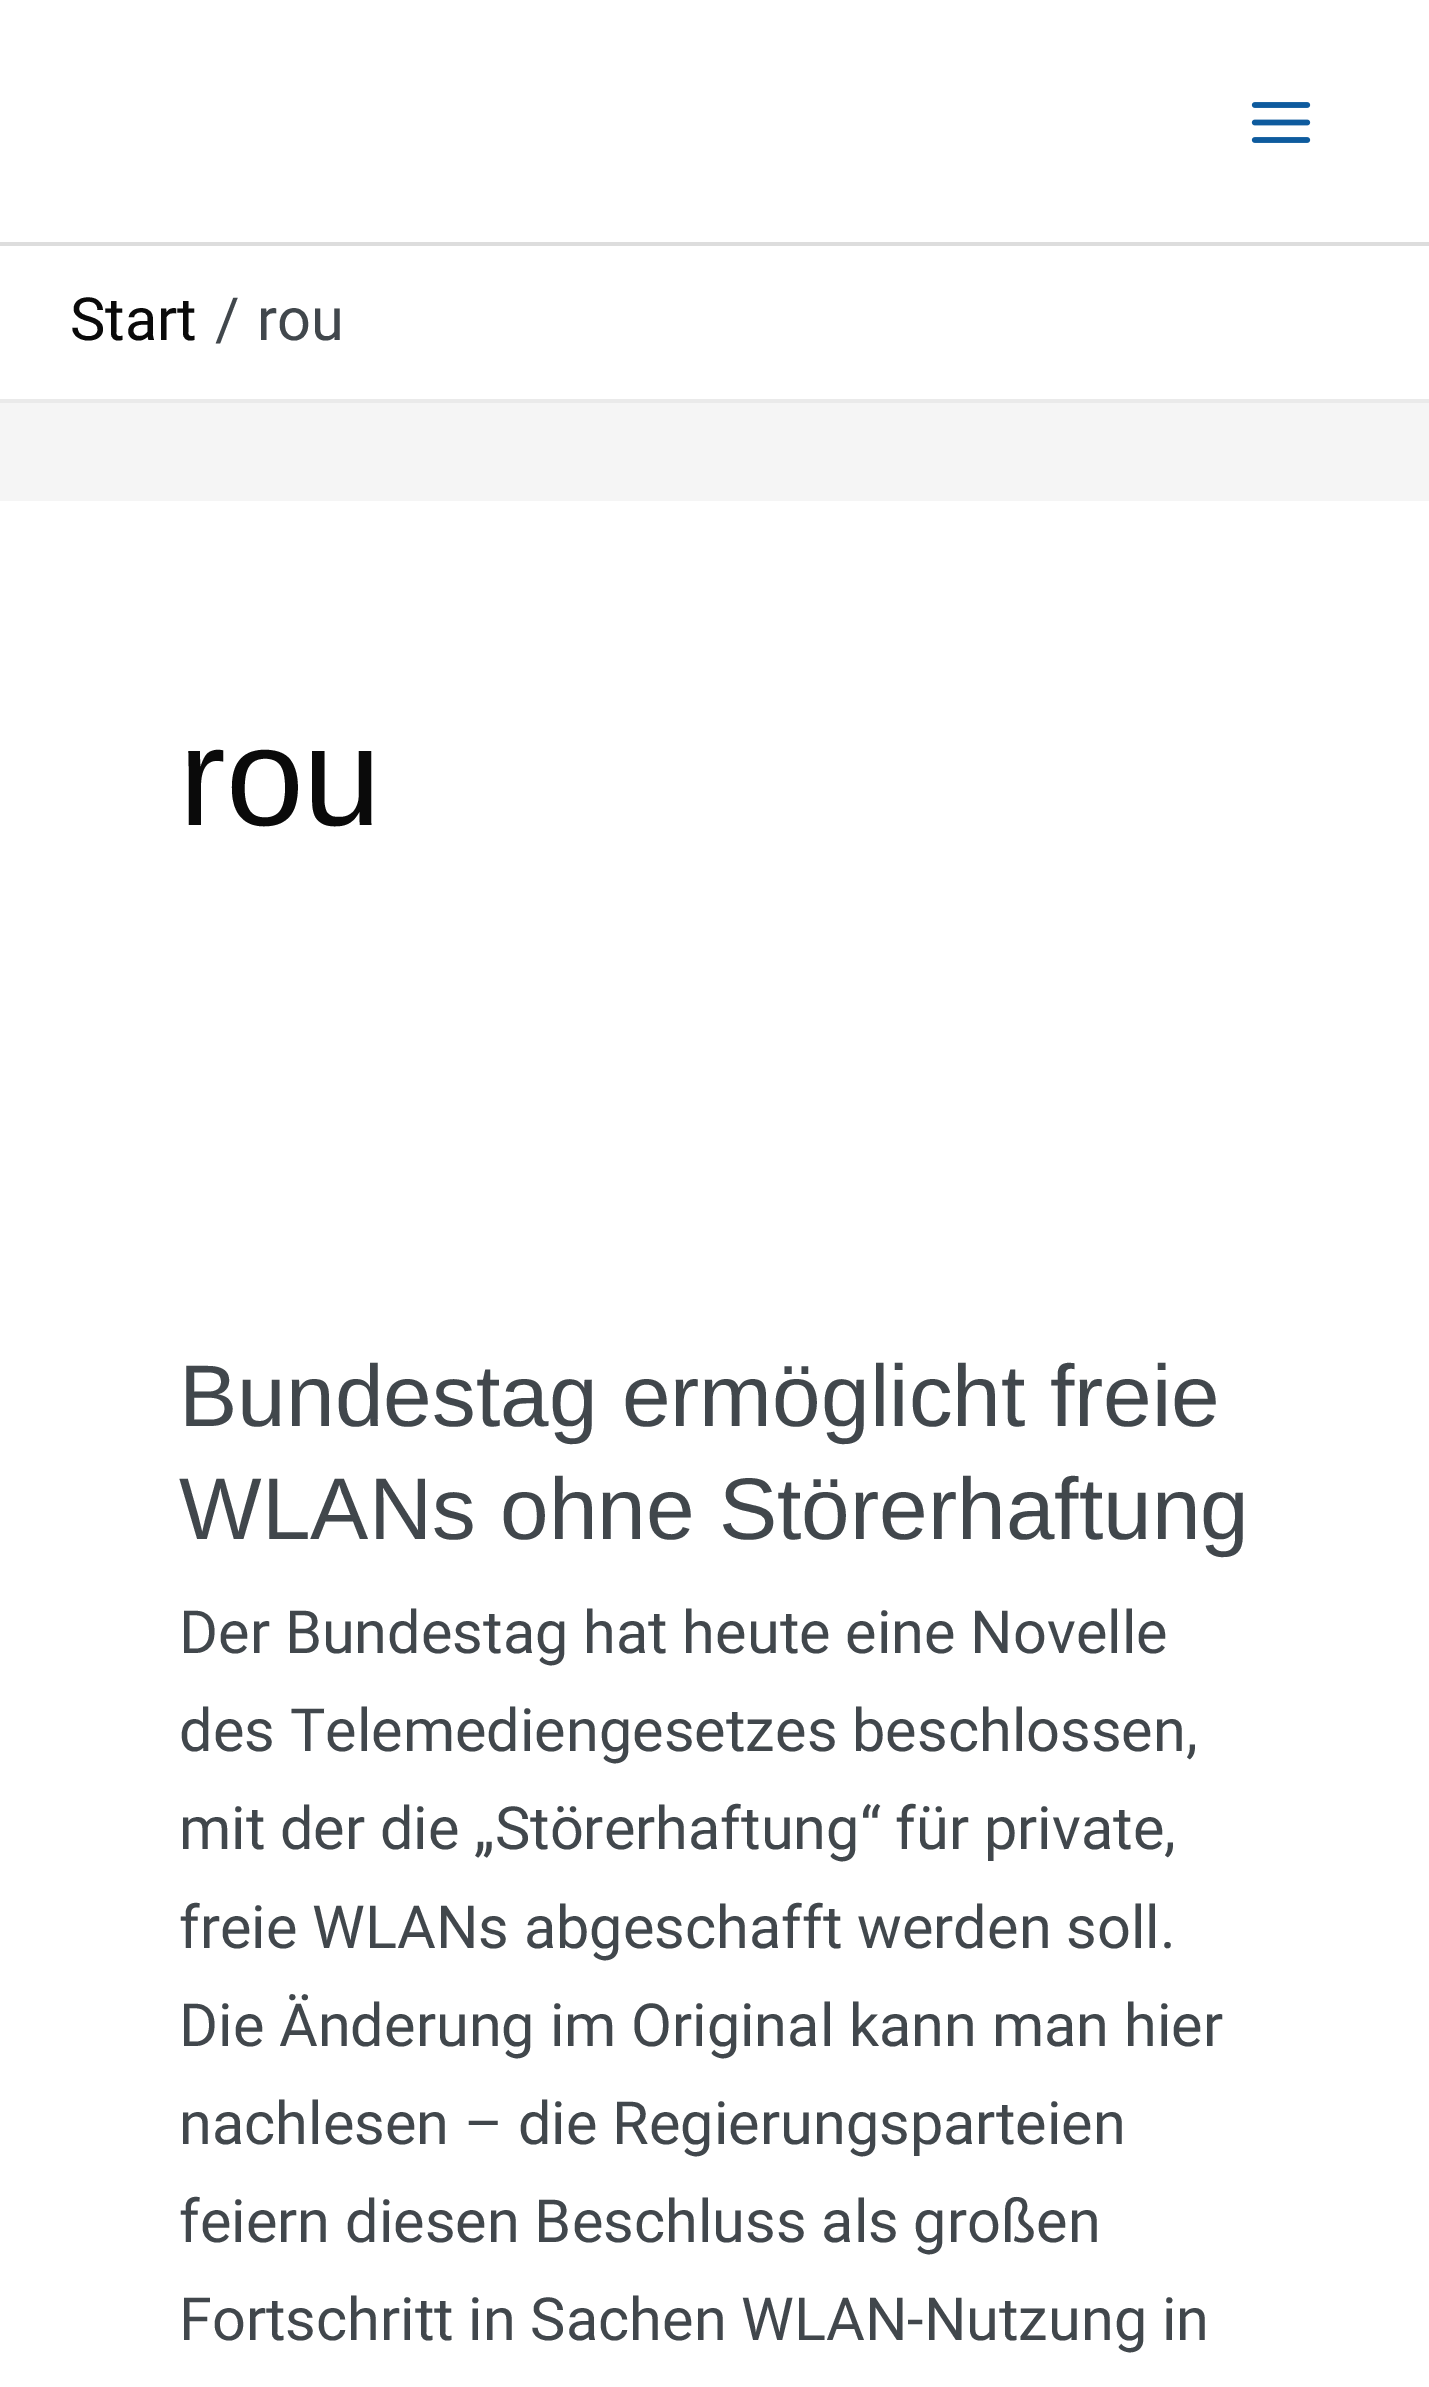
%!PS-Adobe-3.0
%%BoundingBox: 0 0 1429 2387
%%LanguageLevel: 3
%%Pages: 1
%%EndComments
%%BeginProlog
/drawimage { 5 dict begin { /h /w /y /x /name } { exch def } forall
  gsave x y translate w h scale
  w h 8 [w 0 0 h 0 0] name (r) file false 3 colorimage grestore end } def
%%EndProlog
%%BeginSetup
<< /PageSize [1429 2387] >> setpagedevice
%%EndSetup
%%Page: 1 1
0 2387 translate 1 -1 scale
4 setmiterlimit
0.961 setgray
0 0 1429 2387 rectfill
1 setgray
0 0 1429 242 rectfill
0.867 setgray
0 242 1429 4 rectfill
(images/1.raw) 1251 102 60 41 drawimage
1 setgray
0 246 1429 153 rectfill
0.918 setgray
0 399 1429 4 rectfill
1 setgray
0 501 1429 1886 rectfill
/Roboto-Regular [59.5 0 0 -59.5 0 0] selectfont
0.039 setgray
70 340 moveto (Start) show
0.255 0.278 0.298 setrgbcolor
215 340 moveto (/) show
257 340 moveto (rou) show
/LiberationSans-Regular [140 0 0 -140 0 0] selectfont
0.039 setgray
179 825 moveto (rou) show
/LiberationSans-Regular [87.5 0 0 -87.5 0 0] selectfont
0.255 0.278 0.298 setrgbcolor
179 1426 moveto (Bundestag ermöglicht freie) show
179 1539 moveto (WLANs ohne Störerhaftung) show
/Roboto-Regular [59.5 0 0 -59.5 0 0] selectfont
179 1653 moveto (Der Bundestag hat heute eine Novelle) show
179 1751 moveto (des Telemediengesetzes beschlossen,) show
179 1849 moveto (mit der die „Störerhaftung“ für private,) show
179 1948 moveto (freie WLANs abgeschafft werden soll.) show
179 2046 moveto (Die Änderung im Original kann man hier) show
179 2144 moveto (nachlesen – die Regierungsparteien) show
179 2242 moveto (feiern diesen Beschluss als großen) show
179 2340 moveto (Fortschritt in Sachen WLAN-Nutzung in) show
showpage
%%EOF
